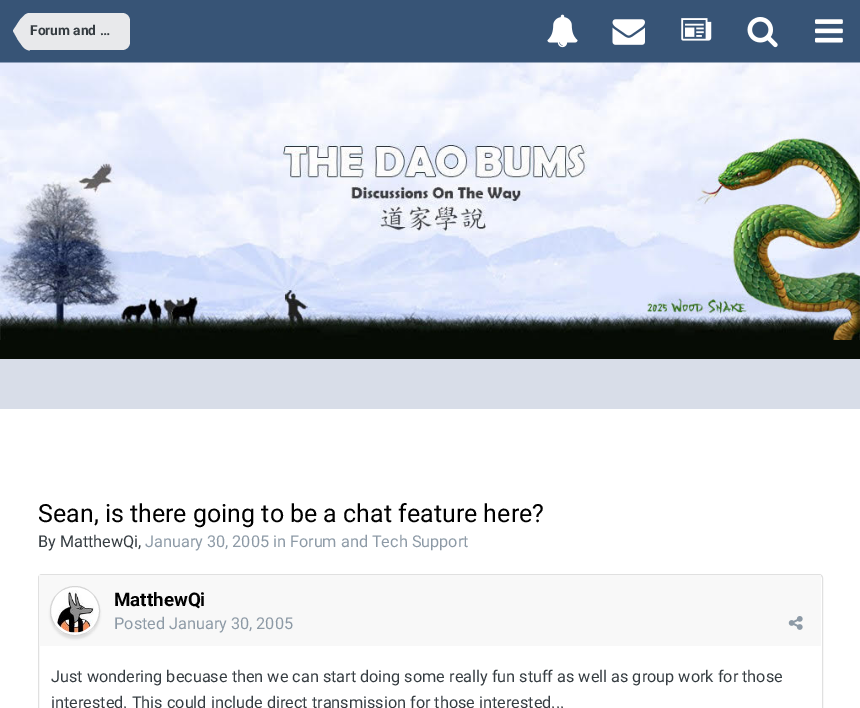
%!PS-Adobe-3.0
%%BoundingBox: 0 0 860 708
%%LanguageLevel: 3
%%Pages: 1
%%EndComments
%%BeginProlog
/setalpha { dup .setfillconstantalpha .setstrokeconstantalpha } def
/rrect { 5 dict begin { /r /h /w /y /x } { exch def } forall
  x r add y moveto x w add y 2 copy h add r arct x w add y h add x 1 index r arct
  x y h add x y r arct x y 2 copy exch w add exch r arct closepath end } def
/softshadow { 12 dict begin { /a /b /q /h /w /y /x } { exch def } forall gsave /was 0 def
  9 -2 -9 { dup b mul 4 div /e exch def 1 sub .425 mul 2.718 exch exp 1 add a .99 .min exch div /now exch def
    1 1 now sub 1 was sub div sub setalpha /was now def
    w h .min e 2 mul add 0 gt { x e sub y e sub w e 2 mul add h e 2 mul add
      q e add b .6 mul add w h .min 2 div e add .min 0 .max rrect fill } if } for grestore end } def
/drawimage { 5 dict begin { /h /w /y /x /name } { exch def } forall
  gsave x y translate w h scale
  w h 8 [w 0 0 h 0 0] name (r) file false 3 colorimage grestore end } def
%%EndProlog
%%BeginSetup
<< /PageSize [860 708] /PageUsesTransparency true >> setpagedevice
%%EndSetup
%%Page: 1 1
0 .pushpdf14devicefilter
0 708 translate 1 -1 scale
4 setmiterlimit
0.847 0.867 0.91 setrgbcolor
0 0 860 708 rectfill
0.216 0.329 0.463 setrgbcolor
0 0 860 63 rectfill
0.91 0.914 0.922 setrgbcolor
newpath 30 13 moveto 122 13 lineto 126.5 13 130 16.5 130 21 curveto 130 42 lineto 130 46.5 126.5 50 122 50 curveto 30 50 lineto closepath fill
newpath 13 31 moveto 30 31 lineto 30 50.5 lineto 28 50.5 25.5 49.5 23 47 curveto 18 40 lineto closepath 30 13 moveto 30 31 lineto 13 31 lineto 13 30.5 lineto 20.5 19 lineto 24 15.5 lineto 25.5 14 27.5 13 30 13 curveto closepath fill
(images/1.raw) 547 14 31 34 drawimage
(images/2.raw) 612 19 33 26 drawimage
(images/3.raw) 681 18 31 23 drawimage
(images/4.raw) 747 17 31 31 drawimage
(images/5.raw) 815 19 28 24 drawimage
(images/6.raw) 0 62 860 278 drawimage
0.024 0.047 0.02 setrgbcolor
0 340 860 19 rectfill
1 setgray
0 409 860 299 rectfill
0.878 setgray
38.5 574.5 784 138 3.5 rrect stroke
0.973 setgray
39 575 782 71 rectfill
0 setgray
50 589 50 50 25 1 0.1 softshadow
1 setgray
newpath 75 611 24.5 0 360 arc closepath gsave fill grestore
0.835 setgray
stroke
(images/7.raw) 55 590 39 43 drawimage
(images/8.raw) 788 616 15 14 drawimage
/Roboto-Bold [13.75 0 0 -13.75 0 0] selectfont
0.208 0.235 0.255 setrgbcolor
30 35 moveto (Forum and …) show
/Roboto-Regular [25 0 0 -25 0 0] selectfont
0 setgray
38 522 moveto (Sean, is there going to be a chat feature here?) show
/Roboto-Regular [16.25 0 0 -16.25 0 0] selectfont
0.208 0.235 0.255 setrgbcolor
38 547 moveto (By MatthewQi,) show
0.553 0.604 0.651 setrgbcolor
145 547 moveto (January 30, 2005 in Forum and Tech Support) show
/Roboto-Bold [18.75 0 0 -18.75 0 0] selectfont
0 setgray
114 606 moveto (MatthewQi) show
/Roboto-Regular [16.25 0 0 -16.25 0 0] selectfont
0.553 0.604 0.651 setrgbcolor
114 629 moveto (Posted January 30, 2005) show
0.208 0.235 0.255 setrgbcolor
51 682 moveto (Just wondering becuase then we can start doing some really fun stuff as well as group work for those) show
51 708 moveto (interested. This could include direct transmission for those interested...) show
.poppdf14devicefilter showpage
%%EOF
